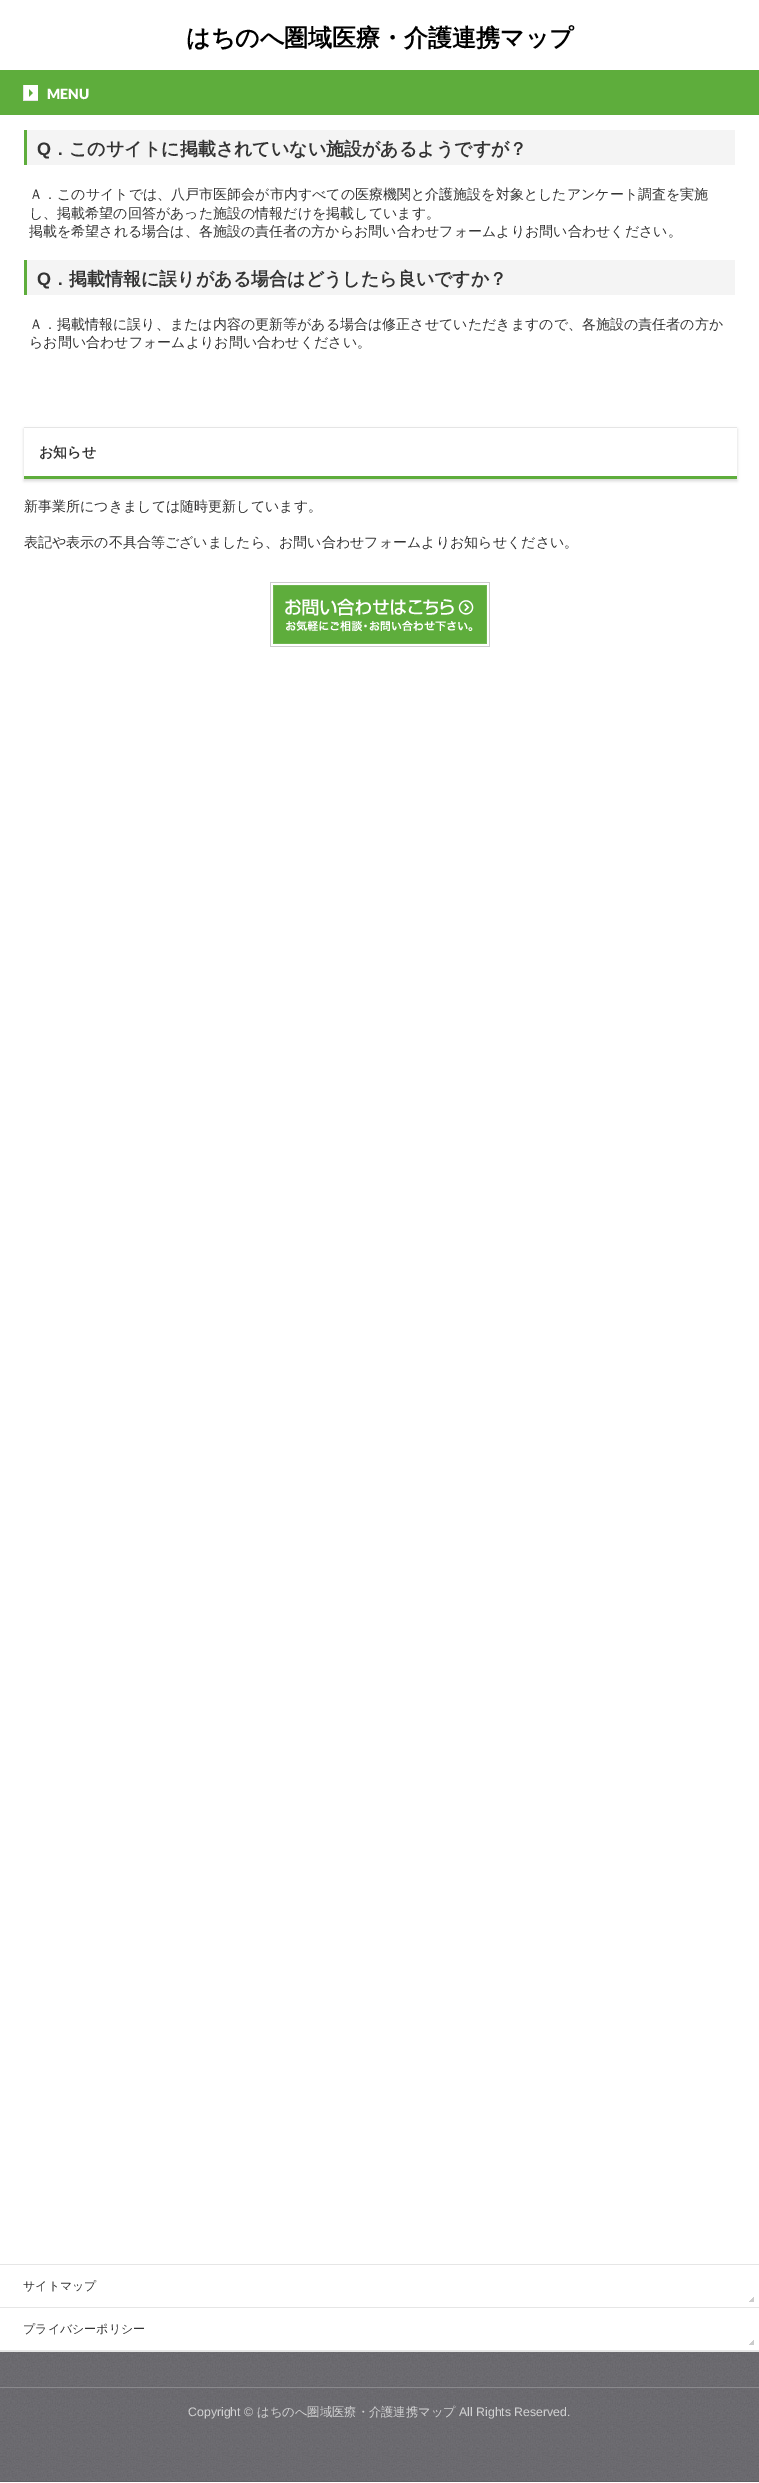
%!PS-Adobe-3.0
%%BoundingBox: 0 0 759 2483
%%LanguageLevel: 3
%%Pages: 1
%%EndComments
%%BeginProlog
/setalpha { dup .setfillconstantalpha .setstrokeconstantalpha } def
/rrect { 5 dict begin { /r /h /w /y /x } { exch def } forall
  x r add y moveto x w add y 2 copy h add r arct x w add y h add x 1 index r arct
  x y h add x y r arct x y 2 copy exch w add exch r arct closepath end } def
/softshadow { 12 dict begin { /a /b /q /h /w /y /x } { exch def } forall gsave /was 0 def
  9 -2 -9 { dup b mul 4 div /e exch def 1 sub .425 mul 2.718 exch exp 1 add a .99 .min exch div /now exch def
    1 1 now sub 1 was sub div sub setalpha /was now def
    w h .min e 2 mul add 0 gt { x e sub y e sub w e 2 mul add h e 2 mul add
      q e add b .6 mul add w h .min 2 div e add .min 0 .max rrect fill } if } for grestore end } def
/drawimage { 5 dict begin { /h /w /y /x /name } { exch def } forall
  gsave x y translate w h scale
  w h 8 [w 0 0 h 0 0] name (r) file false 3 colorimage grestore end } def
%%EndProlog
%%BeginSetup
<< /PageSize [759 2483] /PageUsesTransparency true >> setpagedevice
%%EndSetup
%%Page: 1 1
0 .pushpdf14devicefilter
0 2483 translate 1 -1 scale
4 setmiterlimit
1 setgray
0 0 759 2483 rectfill
0.369 0.678 0.235 setrgbcolor
0 70 759 45 rectfill
(images/1.raw) 23 85 15 16 drawimage
0.957 setgray
27 130 708 35 rectfill
0.369 0.678 0.235 setrgbcolor
24 130 3 35 rectfill
0.957 setgray
27 260 708 35 rectfill
0.369 0.678 0.235 setrgbcolor
24 260 3 35 rectfill
gsave
newpath 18 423 moveto 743 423 lineto 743 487 lineto 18 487 lineto closepath 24 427 moveto 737 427 lineto 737 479 lineto 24 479 lineto closepath eoclip newpath
0 setgray
24 429 713 52 0 1.5 0.15 softshadow
grestore
0.898 setgray
24 427 713 1 rectfill
0.369 0.678 0.235 setrgbcolor
24 476 713 3 rectfill
273 585 214 59 rectfill
(images/2.raw) 270 582 220 65 drawimage
0.902 setgray
0 2264 759 1 rectfill
0 2350 759 2 rectfill
(images/3.raw) 749 2297 5 5 drawimage
0 2307 759 1 rectfill
(images/3.raw) 749 2340 5 5 drawimage
(images/4.raw) 0 2352 759 129 drawimage
0.373 0.369 0.388 setrgbcolor
0 2481 759 1 rectfill
(images/5.raw) 0 2388 759 73 drawimage
0.541 0.537 0.549 setrgbcolor
0 2387 759 1 rectfill
/WenQuanYiZenHei-Bold [24 0 0 -24 0 0] selectfont
0 setgray
186 46 moveto (はちのへ圏域医療・介護連携マップ) show
/Lato-Black [14 0 0 -14 0 0] selectfont
1 setgray
47 99 moveto (MENU) show
/LiberationSans-Bold [18 0 0 -18 0 0] selectfont
0.2 setgray
37 155 moveto (Q) show
/WenQuanYiZenHei-Bold [18 0 0 -18 0 0] selectfont
51 155 moveto (．このサイトに掲載されていない施設があるようですが？) show
/WenQuanYiZenHei-Medium [14 0 0 -14 0 0] selectfont
29 199 moveto (Ａ．このサイトでは、八戸市医師会が市内すべての医療機関と介護施設を対象としたアンケート調査を実施) show
29 218 moveto (し、掲載希望の回答があった施設の情報だけを掲載しています。) show
29 236 moveto (掲載を希望される場合は、各施設の責任者の方からお問い合わせフォームよりお問い合わせください。) show
/LiberationSans-Bold [18 0 0 -18 0 0] selectfont
37 285 moveto (Q) show
/WenQuanYiZenHei-Bold [18 0 0 -18 0 0] selectfont
51 285 moveto (．掲載情報に誤りがある場合はどうしたら良いですか？) show
/WenQuanYiZenHei-Medium [14 0 0 -14 0 0] selectfont
29 329 moveto (Ａ．掲載情報に誤り、または内容の更新等がある場合は修正させていただきますので、各施設の責任者の方か) show
29 347 moveto (らお問い合わせフォームよりお問い合わせください。) show
/WenQuanYiZenHei-Bold [14 0 0 -14 0 0] selectfont
39 457 moveto (お知らせ) show
/WenQuanYiZenHei-Medium [14 0 0 -14 0 0] selectfont
24 511 moveto (新事業所につきましては随時更新しています。) show
24 547 moveto (表記や表示の不具合等ございましたら、お問い合わせフォームよりお知らせください。) show
/WenQuanYiZenHei-Medium [12 0 0 -12 0 0] selectfont
23 2290 moveto (サイトマップ) show
23 2333 moveto (プライバシーポリシー) show
/LiberationSans-Regular [12.3 0 0 -12.3 0 0] selectfont
0.824 0.824 0.827 setrgbcolor
188 2416 moveto (Copyright ©) show
/WenQuanYiZenHei-Medium [12.3 0 0 -12.3 0 0] selectfont
257 2416 moveto (はちのへ圏域医療・介護連携マップ) show
/LiberationSans-Regular [12.3 0 0 -12.3 0 0] selectfont
459 2416 moveto (All Rights Reserved.) show
.poppdf14devicefilter showpage
%%EOF
